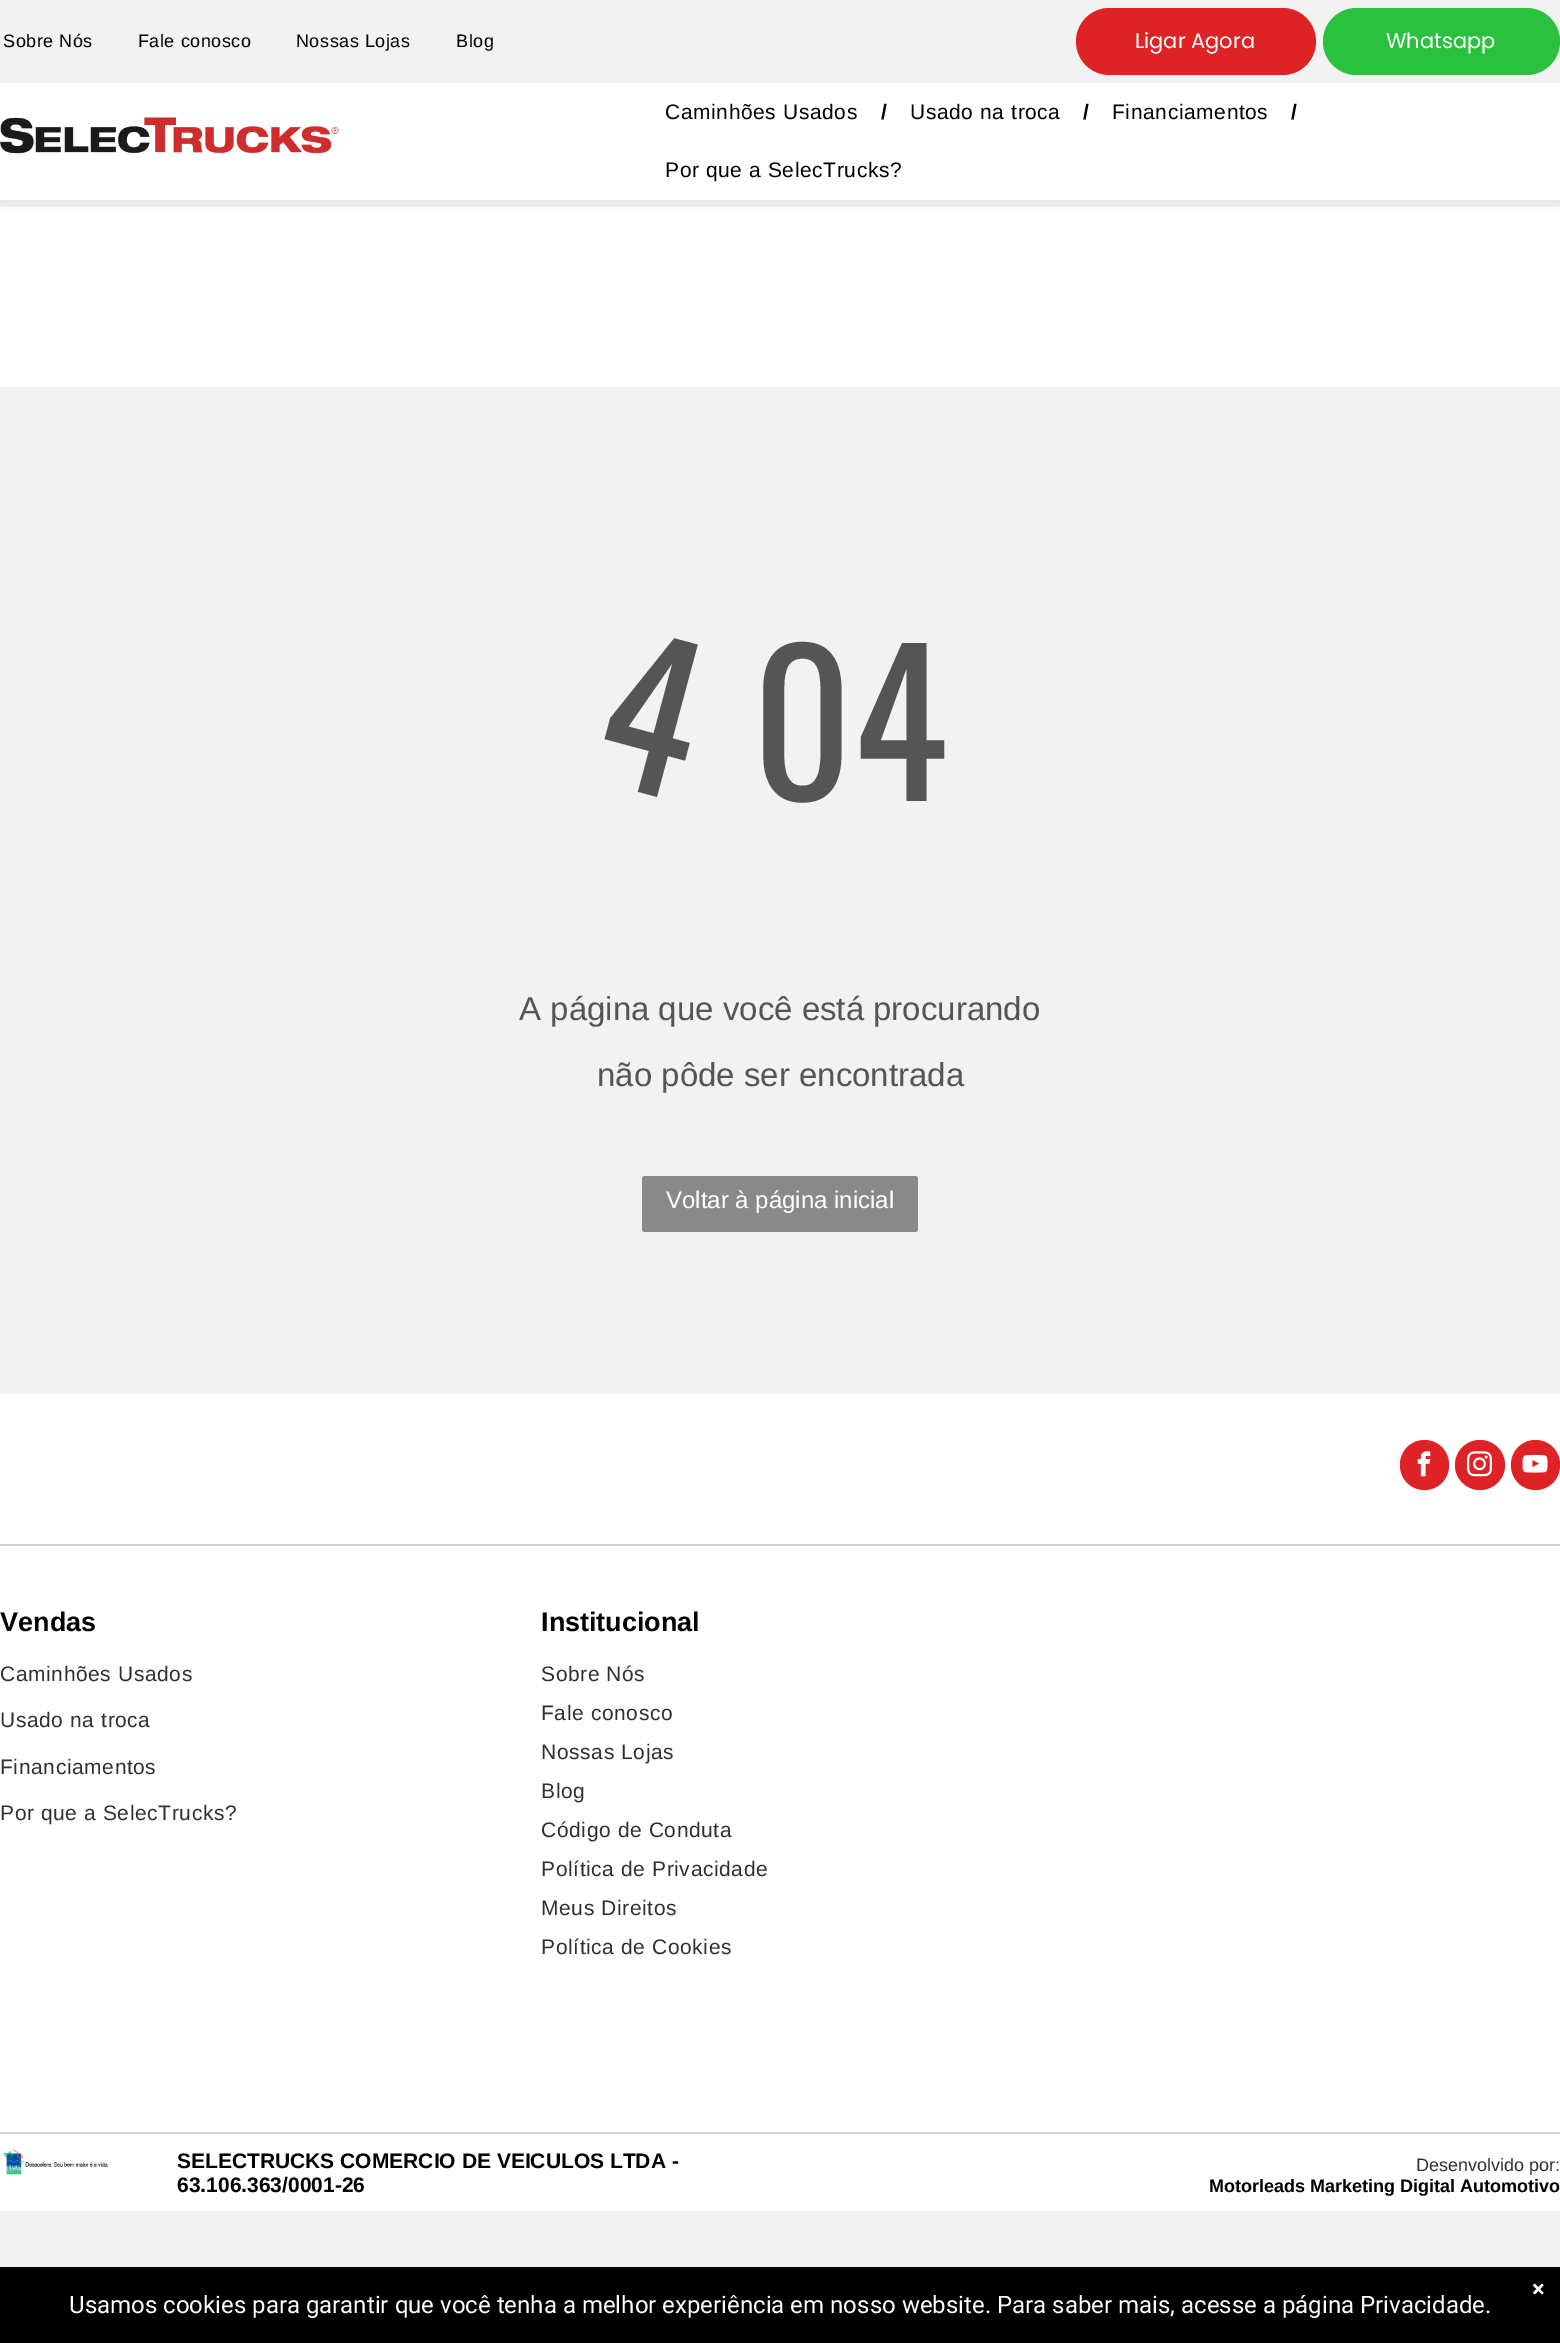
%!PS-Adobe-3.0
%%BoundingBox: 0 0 1560 2343
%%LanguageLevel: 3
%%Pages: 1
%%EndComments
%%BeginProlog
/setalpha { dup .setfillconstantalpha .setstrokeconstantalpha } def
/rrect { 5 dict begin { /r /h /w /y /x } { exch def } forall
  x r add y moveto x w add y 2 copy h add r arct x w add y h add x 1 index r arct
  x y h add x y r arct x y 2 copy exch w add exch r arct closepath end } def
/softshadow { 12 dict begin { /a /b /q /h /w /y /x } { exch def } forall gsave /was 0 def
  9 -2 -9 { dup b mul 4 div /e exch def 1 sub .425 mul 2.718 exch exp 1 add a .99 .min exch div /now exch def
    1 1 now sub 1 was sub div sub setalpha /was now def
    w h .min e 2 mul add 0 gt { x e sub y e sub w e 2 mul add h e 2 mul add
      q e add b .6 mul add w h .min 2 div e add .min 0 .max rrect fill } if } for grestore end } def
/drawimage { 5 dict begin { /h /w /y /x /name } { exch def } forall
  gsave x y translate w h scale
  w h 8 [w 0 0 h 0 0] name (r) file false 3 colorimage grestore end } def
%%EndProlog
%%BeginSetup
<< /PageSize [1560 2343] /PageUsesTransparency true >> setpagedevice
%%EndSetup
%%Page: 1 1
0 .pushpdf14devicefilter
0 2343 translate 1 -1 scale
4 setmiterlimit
0.949 setgray
0 0 1560 2343 rectfill
1 setgray
0 207 1560 180 rectfill
0 setgray
0 5 1560 199 0 8 0.05 softshadow
1 setgray
0 83 1560 117 rectfill
0.949 setgray
0 0 1560 83 rectfill
0.871 0.137 0.149 setrgbcolor
1076 8 240 67 33.5 rrect fill
0.161 0.757 0.239 setrgbcolor
1323 8 237 67 33.5 rrect fill
(images/1.raw) 0 117 339 38 drawimage
0.537 setgray
642 1176 276 56 3 rrect fill
1 setgray
0 1394 1560 150 rectfill
0.871 0.137 0.149 setrgbcolor
1400 1440 49 50 24.5 rrect fill
(images/2.raw) 1417 1451 14 26 drawimage
newpath 1480 1465 25 0 360 arc closepath fill
(images/3.raw) 1467 1451 25 26 drawimage
1511 1440 49 50 24.5 rrect fill
(images/4.raw) 1522 1455 26 18 drawimage
1 setgray
0 1546 1560 586 rectfill
0.82 setgray
0 1544 1560 2 rectfill
1 setgray
0 2134 1560 77 rectfill
0.82 setgray
0 2132 1560 2 rectfill
(images/5.raw) 3 2149 106 26 drawimage
0 setgray
0 2267 1560 76 rectfill
/LiberationSans-Regular [18 0 0 -18 0 0] selectfont
3 47 moveto 0.5 0 (Sobre Nós) ashow
138 47 moveto 0.5 0 (Fale conosco) ashow
296 47 moveto 0.5 0 (Nossas Lojas) ashow
456 47 moveto 0.5 0 (Blog) ashow
/Poppins-Regular [21 0 0 -21 0 0] selectfont
1 setgray
1135 48 moveto (Ligar Agora) show
1386 48 moveto (Whatsapp) show
/LiberationSans-Regular [21 0 0 -21 0 0] selectfont
0 setgray
665 119 moveto 0.6 0 (Caminhões Usados) ashow
/LiberationSans-Bold [21 0 0 -21 0 0] selectfont
881 119 moveto (/) show
/LiberationSans-Regular [21 0 0 -21 0 0] selectfont
910 119 moveto 0.6 0 (Usado na troca) ashow
/LiberationSans-Bold [21 0 0 -21 0 0] selectfont
1083 119 moveto (/) show
/LiberationSans-Regular [21 0 0 -21 0 0] selectfont
1112 119 moveto 0.6 0 (Financiamentos) ashow
/LiberationSans-Bold [21 0 0 -21 0 0] selectfont
1291 119 moveto (/) show
/LiberationSans-Regular [21 0 0 -21 0 0] selectfont
665 177 moveto 0.6 0 (Por que a SelecTrucks?) ashow
/Oswald-Regular [195 0 0 -195 0 0] selectfont
0.333 setgray
gsave 586 778 translate 15 rotate 0 0 moveto (4) show grestore
752 801 moveto (04) show
/LiberationSans-Regular [33 0 0 -33 0 0] selectfont
519 1020 moveto (A página que você está procurando) show
597 1086 moveto (não pôde ser encontrada) show
/LiberationSans-Regular [24 0 0 -24 0 0] selectfont
1 setgray
666 1208 moveto (Voltar à página inicial) show
/LiberationSans-Bold [27 0 0 -27 0 0] selectfont
0 setgray
0 1631 moveto (Vendas) show
/LiberationSans-Regular [21 0 0 -21 0 0] selectfont
0.188 setgray
0 1681 moveto 0.6 0 (Caminhões Usados) ashow
0 1727 moveto 0.6 0 (Usado na troca) ashow
0 1774 moveto 0.6 0 (Financiamentos) ashow
0 1820 moveto 0.6 0 (Por que a SelecTrucks?) ashow
/LiberationSans-Bold [27 0 0 -27 0 0] selectfont
0 setgray
541 1631 moveto (Institucional) show
/LiberationSans-Regular [21 0 0 -21 0 0] selectfont
0.188 setgray
541 1681 moveto 0.6 0 (Sobre Nós) ashow
541 1720 moveto 0.6 0 (Fale conosco) ashow
541 1759 moveto 0.6 0 (Nossas Lojas) ashow
541 1798 moveto 0.6 0 (Blog) ashow
541 1837 moveto 0.6 0 (Código de Conduta) ashow
541 1876 moveto 0.6 0 (Política de Privacidade) ashow
541 1915 moveto 0.6 0 (Meus Direitos) ashow
541 1954 moveto 0.6 0 (Política de Cookies) ashow
/LiberationSans-Bold [21 0 0 -21 0 0] selectfont
0 setgray
177 2168 moveto (SELECTRUCKS COMERCIO DE VEICULOS LTDA -) show
177 2192 moveto (63.106.363/0001-26) show
/LiberationSans-Regular [18 0 0 -18 0 0] selectfont
0.188 setgray
1416 2171 moveto (Desenvolvido por:) show
/LiberationSans-Bold [18 0 0 -18 0 0] selectfont
0 setgray
1209 2192 moveto (Motorleads Marketing Digital Automotivo) show
/Roboto-Bold [24 0 0 -24 0 0] selectfont
1 setgray
1532 2297 moveto (×) show
/Roboto-Regular [24 0 0 -24 0 0] selectfont
69 2313 moveto (Usamos cookies para garantir que você tenha a melhor experiência em nosso website. Para saber mais, acesse a página Privacidade.) show
.poppdf14devicefilter showpage
%%EOF
